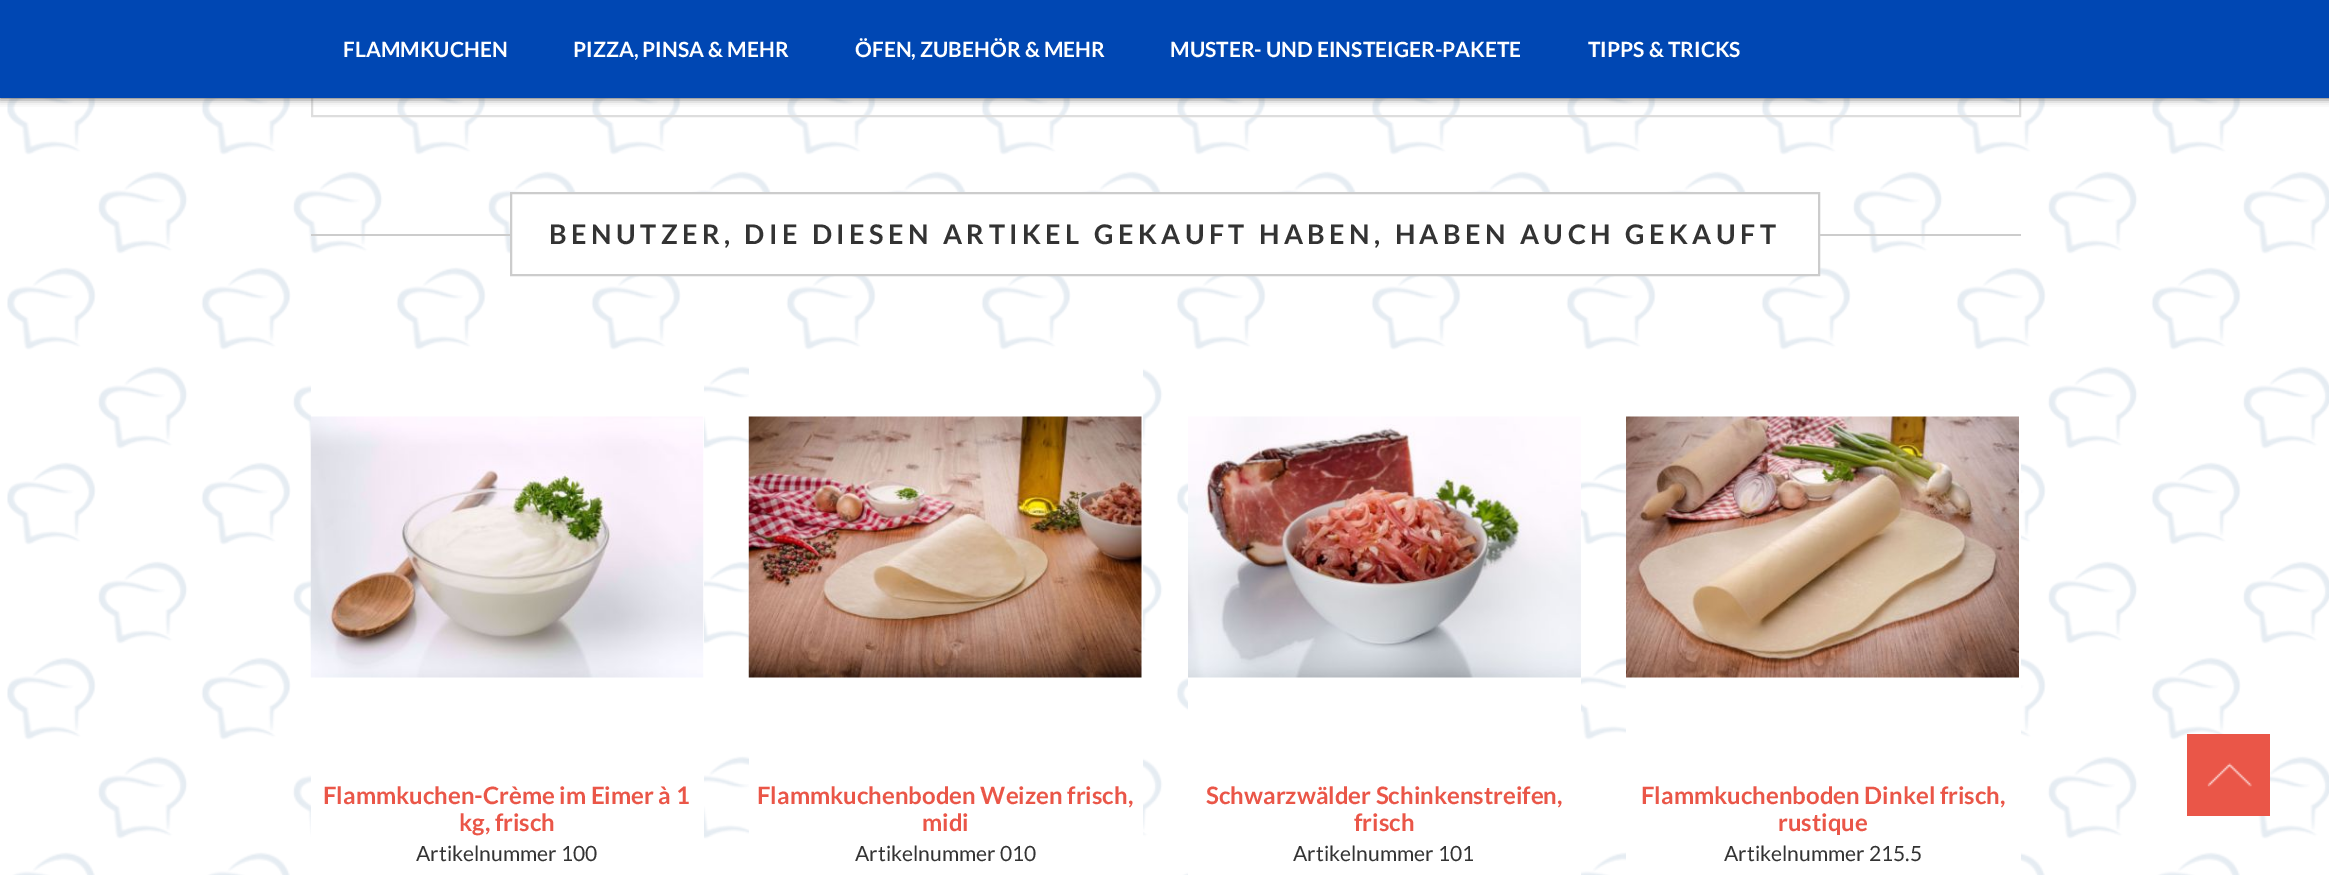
%!PS-Adobe-3.0
%%BoundingBox: 0 0 2329 875
%%LanguageLevel: 3
%%Pages: 1
%%EndComments
%%BeginProlog
/setalpha { dup .setfillconstantalpha .setstrokeconstantalpha } def
/rrect { 5 dict begin { /r /h /w /y /x } { exch def } forall
  x r add y moveto x w add y 2 copy h add r arct x w add y h add x 1 index r arct
  x y h add x y r arct x y 2 copy exch w add exch r arct closepath end } def
/softshadow { 12 dict begin { /a /b /q /h /w /y /x } { exch def } forall gsave /was 0 def
  9 -2 -9 { dup b mul 4 div /e exch def 1 sub .425 mul 2.718 exch exp 1 add a .99 .min exch div /now exch def
    1 1 now sub 1 was sub div sub setalpha /was now def
    w h .min e 2 mul add 0 gt { x e sub y e sub w e 2 mul add h e 2 mul add
      q e add b .6 mul add w h .min 2 div e add .min 0 .max rrect fill } if } for grestore end } def
/drawimage { 5 dict begin { /h /w /y /x /name } { exch def } forall
  gsave x y translate w h scale
  w h 8 [w 0 0 h 0 0] name (r) file false 3 colorimage grestore end } def
%%EndProlog
%%BeginSetup
<< /PageSize [2329 875] /PageUsesTransparency true >> setpagedevice
%%EndSetup
%%Page: 1 1
0 .pushpdf14devicefilter
0 875 translate 1 -1 scale
4 setmiterlimit
1 setgray
0 0 2329 875 rectfill
(images/1.raw) 7 98 2322 777 drawimage
0.867 setgray
2 setlinewidth
312 -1 1708 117 rectstroke
0.267 setgray
0 0 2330 98 0 4 1 softshadow
0 0.278 0.702 setrgbcolor
0 0 2329 98 rectfill
0.8 setgray
311 234 1710 2 rectfill
1 setgray
newpath 511 193 moveto 1819 193 lineto 1819 275 lineto 511 275 lineto closepath gsave fill grestore
0.8 setgray
stroke
1 setgray
311 366 393 509 rectfill
(images/2.raw) 310 416 394 262 drawimage
749 366 394 509 rectfill
(images/3.raw) 748 416 394 262 drawimage
1188 366 393 509 rectfill
(images/4.raw) 1188 416 393 262 drawimage
1626 366 395 509 rectfill
(images/5.raw) 1626 416 393 262 drawimage
0.918 0.337 0.282 setrgbcolor
2187 734 83 82 rectfill
(images/6.raw) 2207 763 45 24 drawimage
/Lato-Bold [21 0 0 -21 0 0] selectfont
1 setgray
343 57 moveto (FLAMMKUCHEN) show
573 57 moveto (PIZZA, PINSA & MEHR) show
855 57 moveto (ÖFEN, ZUBEHÖR & MEHR) show
1170 57 moveto (MUSTER- UND EINSTEIGER-PAKETE) show
1588 57 moveto (TIPPS & TRICKS) show
/Lato-Bold [27 0 0 -27 0 0] selectfont
0.2 setgray
549 244 moveto 4.5 0 (BENUTZER, DIE DIESEN ARTIKEL GEKAUFT HABEN, HABEN AUCH GEKAUFT) ashow
/Lato-Bold [24 0 0 -24 0 0] selectfont
0.918 0.337 0.282 setrgbcolor
323 804 moveto (Flammkuchen-Crème im Eimer à 1) show
459 831 moveto (kg, frisch) show
/Lato-Regular [21 0 0 -21 0 0] selectfont
0.2 setgray
416 861 moveto (Artikelnummer 100) show
/Lato-Bold [24 0 0 -24 0 0] selectfont
0.918 0.337 0.282 setrgbcolor
757 804 moveto (Flammkuchenboden Weizen frisch,) show
922 831 moveto (midi) show
/Lato-Regular [21 0 0 -21 0 0] selectfont
0.2 setgray
855 861 moveto (Artikelnummer 010) show
/Lato-Bold [24 0 0 -24 0 0] selectfont
0.918 0.337 0.282 setrgbcolor
1206 804 moveto (Schwarzwälder Schinkenstreifen,) show
1354 831 moveto (frisch) show
/Lato-Regular [21 0 0 -21 0 0] selectfont
0.2 setgray
1293 861 moveto (Artikelnummer 101) show
/Lato-Bold [24 0 0 -24 0 0] selectfont
0.918 0.337 0.282 setrgbcolor
1641 804 moveto (Flammkuchenboden Dinkel frisch,) show
1778 831 moveto (rustique) show
/Lato-Regular [21 0 0 -21 0 0] selectfont
0.2 setgray
1724 861 moveto (Artikelnummer 215.5) show
.poppdf14devicefilter showpage
%%EOF
